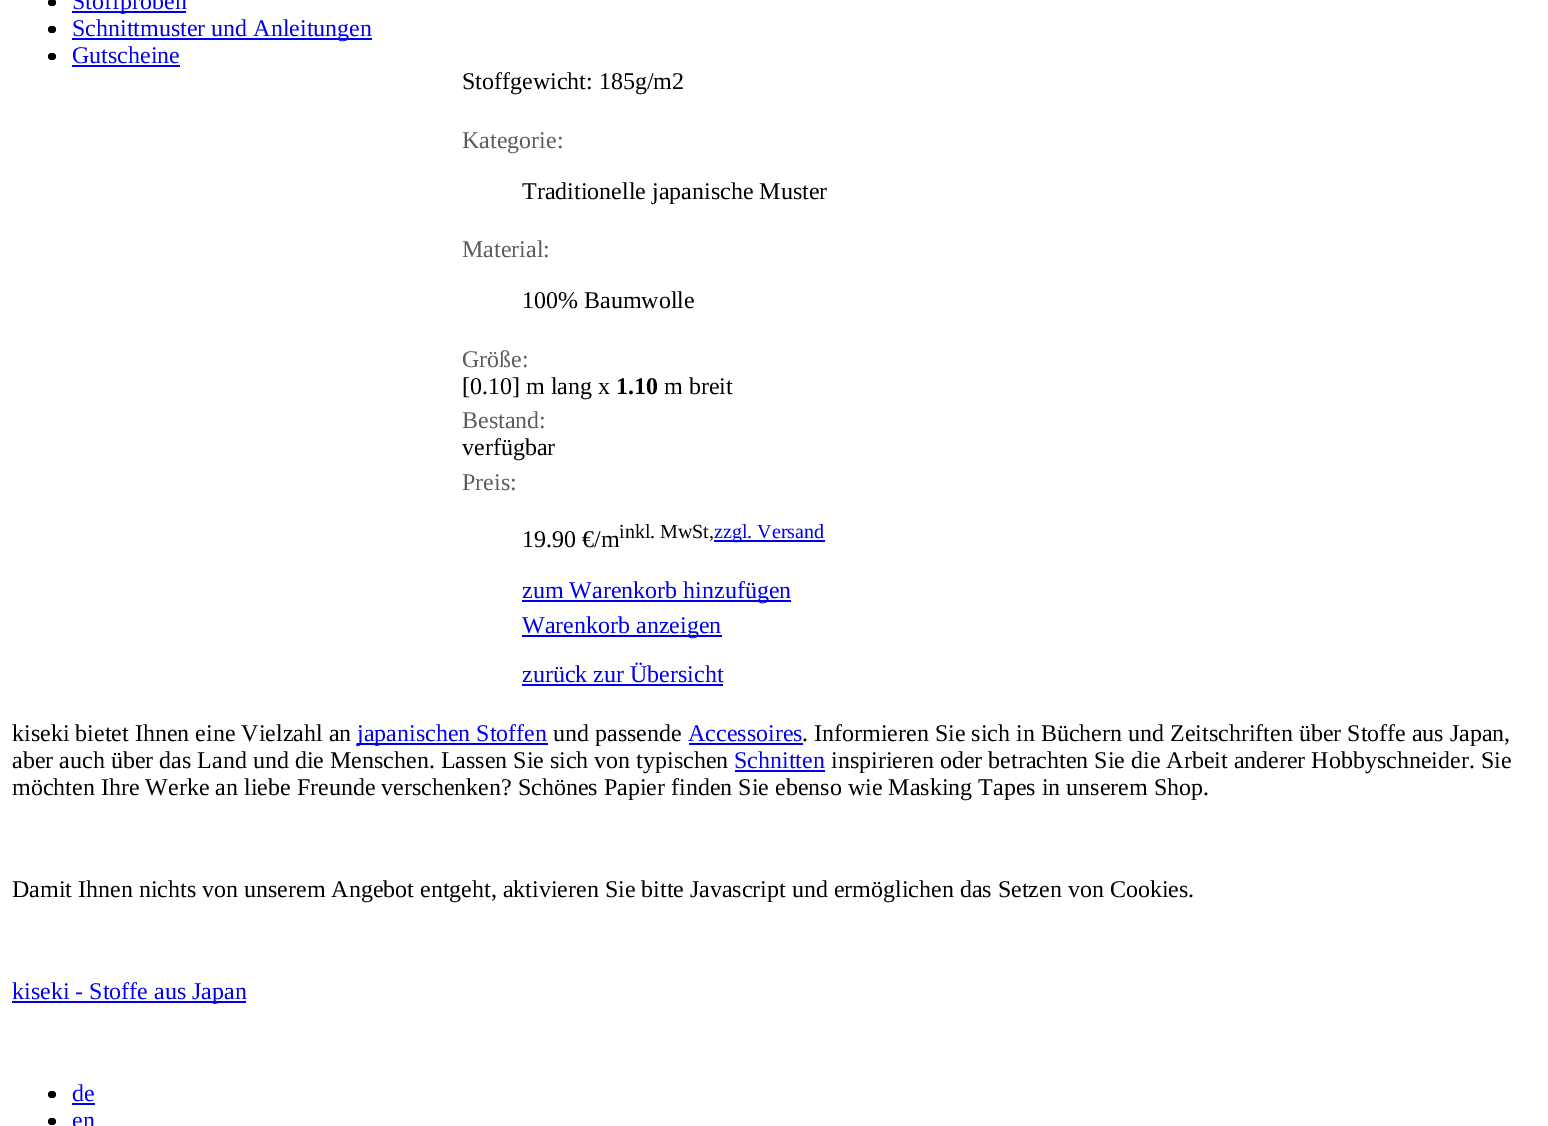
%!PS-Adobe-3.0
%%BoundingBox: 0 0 1548 1126
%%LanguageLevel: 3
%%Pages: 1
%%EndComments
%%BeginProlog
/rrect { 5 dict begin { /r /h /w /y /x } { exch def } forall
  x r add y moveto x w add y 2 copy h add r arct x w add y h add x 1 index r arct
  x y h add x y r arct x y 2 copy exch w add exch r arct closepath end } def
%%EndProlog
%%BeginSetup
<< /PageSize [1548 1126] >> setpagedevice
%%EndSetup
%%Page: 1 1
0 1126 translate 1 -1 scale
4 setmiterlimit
1 setgray
0 0 1548 1126 rectfill
0 setgray
48 -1 8 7 3.5 rrect fill
0 0 0.933 setrgbcolor
72 11 114 2 rectfill
0 setgray
48 26 8 7 3.5 rrect fill
0 0 0.933 setrgbcolor
72 38 300 2 rectfill
0 setgray
48 53 8 7 3.5 rrect fill
0 0 0.933 setrgbcolor
72 65 108 2 rectfill
714 540 111 2 rectfill
522 600 269 2 rectfill
522 635 200 2 rectfill
522 684 201 2 rectfill
357 743 191 2 rectfill
689 743 114 2 rectfill
735 770 90 2 rectfill
12 1001 234 2 rectfill
0 setgray
48 1091 8 7 3.5 rrect fill
0 0 0.933 setrgbcolor
72 1103 23 2 rectfill
0 setgray
48 1118 8 7 3.5 rrect fill
/LiberationSerif-Regular [24 0 0 -24 0 0] selectfont
0 0 0.933 setrgbcolor
72 9 moveto (Stoffproben) show
72 36 moveto (Schnittmuster und Anleitungen) show
72 63 moveto (Gutscheine) show
0 setgray
462 89 moveto (Stoffgewicht: 185g/m2) show
0.361 setgray
462 148 moveto (Kategorie:) show
0 setgray
522 199 moveto (Traditionelle japanische Muster) show
0.361 setgray
462 257 moveto (Material:) show
0 setgray
522 308 moveto (100% Baumwolle) show
0.361 setgray
462 367 moveto (Größe:) show
0 setgray
462 394 moveto ([0.10] m lang x) show
/LiberationSerif-Bold [24 0 0 -24 0 0] selectfont
616 394 moveto (1.10) show
/LiberationSerif-Regular [24 0 0 -24 0 0] selectfont
664 394 moveto (m breit) show
0.361 setgray
462 428 moveto (Bestand:) show
0 setgray
462 455 moveto (verfügbar) show
0.361 setgray
462 490 moveto (Preis:) show
0 setgray
522 547 moveto (19.90 €/m) show
/LiberationSerif-Regular [20 0 0 -20 0 0] selectfont
619 538 moveto (inkl. MwSt,) show
0 0 0.933 setrgbcolor
714 538 moveto (zzgl. Versand) show
/LiberationSerif-Regular [24 0 0 -24 0 0] selectfont
522 598 moveto (zum Warenkorb hinzufügen) show
522 633 moveto (Warenkorb anzeigen) show
522 682 moveto (zurück zur Übersicht) show
0 setgray
12 741 moveto (kiseki bietet Ihnen eine Vielzahl an) show
0 0 0.933 setrgbcolor
357 741 moveto (japanischen Stoffen) show
0 setgray
553 741 moveto (und passende) show
0 0 0.933 setrgbcolor
688 741 moveto (Accessoires) show
0 setgray
802 741 moveto (. Informieren Sie sich in Büchern und Zeitschriften über Stoffe aus Japan,) show
12 768 moveto (aber auch über das Land und die Menschen. Lassen Sie sich von typischen) show
0 0 0.933 setrgbcolor
734 768 moveto (Schnitten) show
0 setgray
831 768 moveto (inspirieren oder betrachten Sie die Arbeit anderer Hobbyschneider. Sie) show
12 795 moveto (möchten Ihre Werke an liebe Freunde verschenken? Schönes Papier finden Sie ebenso wie Masking Tapes in unserem Shop.) show
12 897 moveto (Damit Ihnen nichts von unserem Angebot entgeht, aktivieren Sie bitte Javascript und ermöglichen das Setzen von Cookies.) show
0 0 0.933 setrgbcolor
12 999 moveto (kiseki - Stoffe aus Japan) show
72 1101 moveto (de) show
72 1128 moveto (en) show
showpage
%%EOF
